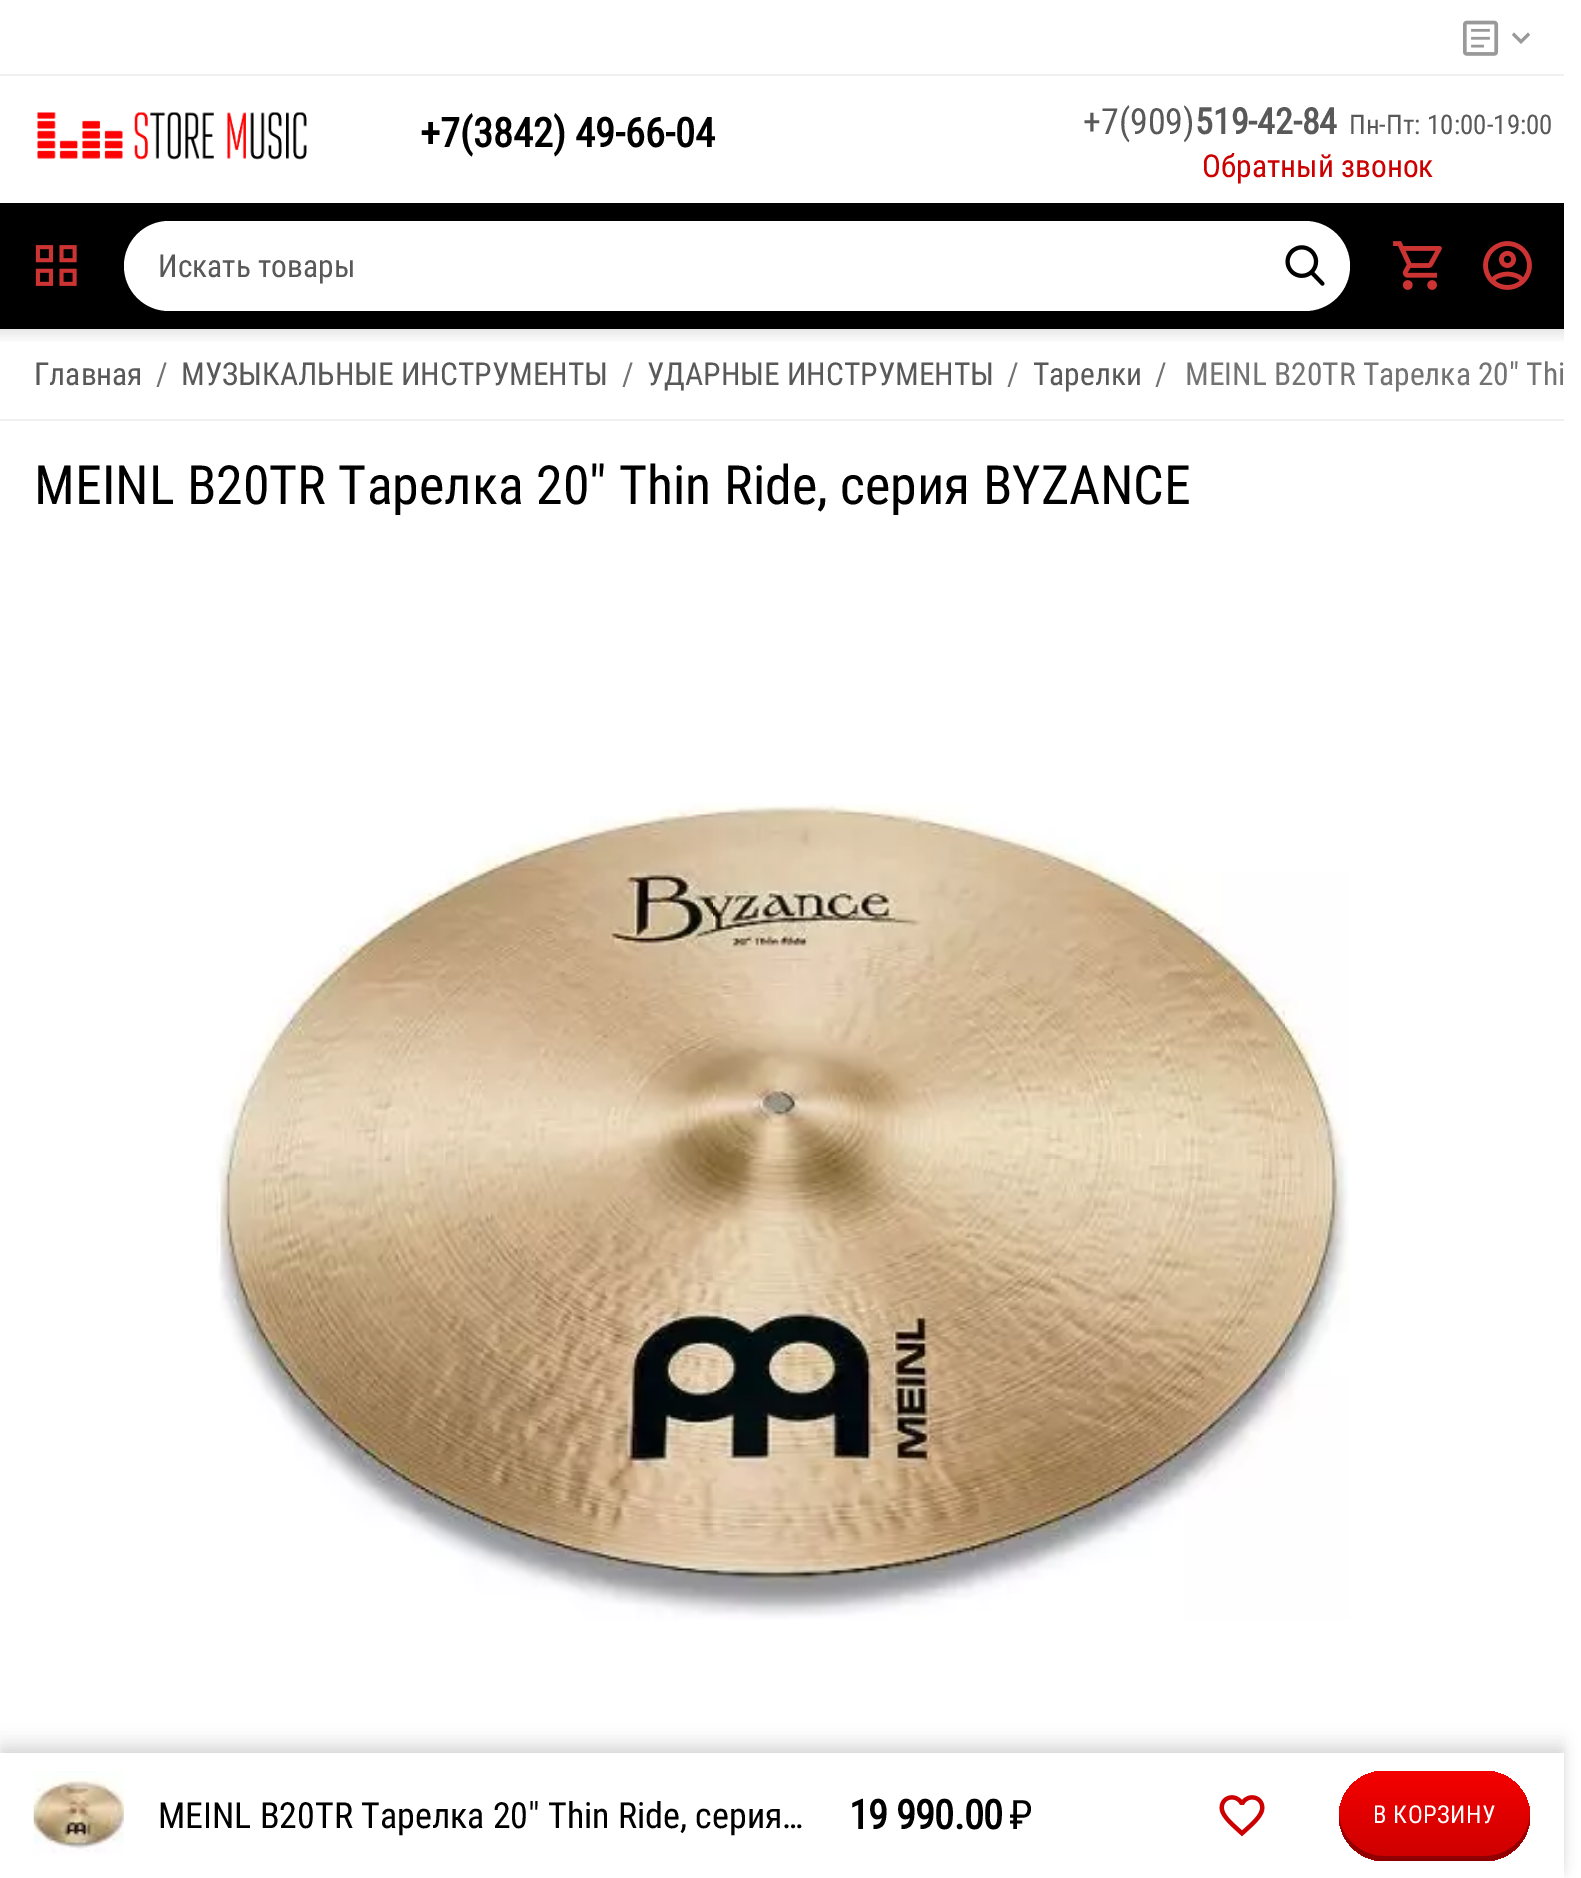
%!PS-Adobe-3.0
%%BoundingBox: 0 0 1581 1878
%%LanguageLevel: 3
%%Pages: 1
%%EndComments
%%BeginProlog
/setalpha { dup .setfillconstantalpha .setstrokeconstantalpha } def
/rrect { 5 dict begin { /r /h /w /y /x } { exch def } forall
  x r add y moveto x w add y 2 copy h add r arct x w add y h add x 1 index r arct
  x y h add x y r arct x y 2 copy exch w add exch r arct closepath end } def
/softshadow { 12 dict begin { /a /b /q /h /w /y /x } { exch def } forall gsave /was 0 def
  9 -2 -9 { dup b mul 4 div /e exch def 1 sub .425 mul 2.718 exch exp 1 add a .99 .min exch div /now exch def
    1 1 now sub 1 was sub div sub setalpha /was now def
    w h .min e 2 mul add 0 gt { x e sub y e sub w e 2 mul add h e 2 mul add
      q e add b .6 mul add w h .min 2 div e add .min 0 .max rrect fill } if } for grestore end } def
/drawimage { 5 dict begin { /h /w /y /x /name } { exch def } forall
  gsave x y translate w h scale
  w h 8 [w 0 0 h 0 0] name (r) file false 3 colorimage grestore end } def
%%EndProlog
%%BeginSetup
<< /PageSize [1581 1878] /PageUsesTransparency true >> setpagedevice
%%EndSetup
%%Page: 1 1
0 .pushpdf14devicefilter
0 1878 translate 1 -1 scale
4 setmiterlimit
1 setgray
0 0 1581 1878 rectfill
0.941 setgray
0 74 1564 2 rectfill
(images/1.raw) 1463 20 36 36 drawimage
0.6 setgray
newpath 1528 32.5 moveto 1521 39.5 lineto 1514 32.5 lineto 1512 35 lineto 1521 44 lineto 1530 35 lineto closepath fill
(images/2.raw) 37 112 270 48 drawimage
0 setgray
0 203 1564 126 rectfill
(images/3.raw) 35 245 42 41 drawimage
1 setgray
124 221 1226 90 45 rrect fill
(images/4.raw) 1285 245 40 41 drawimage
(images/5.raw) 1393 241 49 49 drawimage
(images/6.raw) 1483 241 49 49 drawimage
gsave newpath 0 329 moveto 1564 329 lineto 1564 342 lineto 0 342 lineto closepath clip newpath
<< /ShadingType 2 /ColorSpace /DeviceRGB /Coords [782 328 782 344] /Extend [true true] /Function << /FunctionType 2 /Domain [0 1] /C0 [0.902 0.902 0.902] /C1 [1 1 1] /N 1 >> >> shfill grestore
0.941 setgray
0 419 1564 2 rectfill
(images/7.raw) 216 803 1133 817 drawimage
0 setgray
0 1737 1564 126 0 8 0.05 softshadow
0 1748 1564 126 0 5.5 0.1 softshadow
1 setgray
0 1753 1564 125 rectfill
(images/8.raw) 33 1771 91 83 drawimage
(images/9.raw) 1219 1795 46 42 drawimage
gsave 1339 1771 191 90 45 rrect clip newpath
<< /ShadingType 2 /ColorSpace /DeviceRGB /Coords [1434 1861 1434 1771] /Extend [true true] /Function << /FunctionType 2 /Domain [0 1] /C0 [0.8 0 0] /C1 [0.961 0 0] /N 1 >> >> shfill grestore
0.3 setalpha
0 setgray
newpath 1339 1814 moveto 1339 1816 lineto 1339 1841 1359 1861 1384 1861 curveto 1485 1861 lineto 1510 1861 1530 1841 1530 1816 curveto 1530 1814 lineto 1529 1837 1509 1856 1485 1856 curveto 1384 1856 lineto 1360 1856 1340 1837 1339 1814 curveto closepath fill
/RobotoCondensed-Bold [40.5 0 0 -40.5 0 0] selectfont
1 setalpha
420 147 moveto (+7\(3842\) 49-66-04) show
/RobotoCondensed-Regular [36 0 0 -36 0 0] selectfont
0.349 setgray
1083 134 moveto (+7\(909\)) show
/RobotoCondensed-Bold [36 0 0 -36 0 0] selectfont
1195 134 moveto (519-42-84) show
/RobotoCondensed-Regular [27 0 0 -27 0 0] selectfont
1349 134 moveto (Пн-Пт: 10:00-19:00) show
/RobotoCondensed-Regular [31.5 0 0 -31.5 0 0] selectfont
0.8 0 0 setrgbcolor
1202 177 moveto (Обратный звонок) show
0.349 setgray
158 277 moveto (Искать товары) show
34 385 moveto (Главная) show
0.451 setgray
156 385 moveto (/) show
0.349 setgray
181 385 moveto (МУЗЫКАЛЬНЫЕ ИНСТРУМЕНТЫ) show
0.451 setgray
622 385 moveto (/) show
0.349 setgray
647 385 moveto (УДАРНЫЕ ИНСТРУМЕНТЫ) show
0.451 setgray
1007 385 moveto (/) show
0.349 setgray
1033 385 moveto (Тарелки) show
0.451 setgray
1155 385 moveto (/) show
1185 385 moveto (MEINL B20TR Тарелка 20" Thi) show
/RobotoCondensed-Regular [54 0 0 -54 0 0] selectfont
0 setgray
34 504 moveto (MEINL B20TR Тарелка 20" Thin Ride, серия BYZANCE) show
/RobotoCondensed-Regular [36 0 0 -36 0 0] selectfont
158 1828 moveto (MEINL B20TR Тарелка 20" Thin Ride, серия…) show
/RobotoCondensed-Bold [40.5 0 0 -40.5 0 0] selectfont
849 1829 moveto -0.75 0 (19 990.00) ashow
/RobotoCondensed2-Regular [40.5 0 0 -40.5 0 0] selectfont
1009 1829 moveto -0.75 0 (₽) ashow
/RobotoCondensed-Regular [24.75 0 0 -24.75 0 0] selectfont
1 setgray
1373 1823 moveto 0.5 0 (В КОРЗИНУ) ashow
.poppdf14devicefilter showpage
%%EOF
